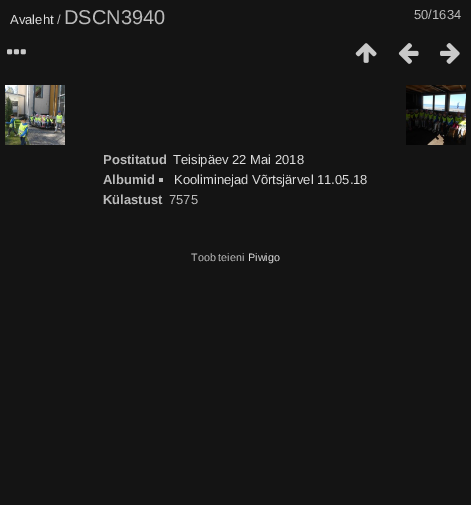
%!PS-Adobe-3.0
%%BoundingBox: 0 0 471 505
%%LanguageLevel: 3
%%Pages: 1
%%EndComments
%%BeginProlog
/drawimage { 5 dict begin { /h /w /y /x /name } { exch def } forall
  gsave x y translate w h scale
  w h 8 [w 0 0 h 0 0] name (r) file false 3 colorimage grestore end } def
%%EndProlog
%%BeginSetup
<< /PageSize [471 505] >> setpagedevice
%%EndSetup
%%Page: 1 1
0 505 translate 1 -1 scale
4 setmiterlimit
0.078 setgray
0 0 471 505 rectfill
(images/1.raw) 7 49 19 6 drawimage
(images/2.raw) 355 43 22 20 drawimage
(images/3.raw) 398 43 21 21 drawimage
(images/4.raw) 440 43 20 21 drawimage
(images/5.raw) 5 85 60 60 drawimage
(images/6.raw) 406 85 60 60 drawimage
0.733 setgray
159 178 4 4 rectfill
/LiberationSans-Regular [13 0 0 -13 0 0] selectfont
0.867 setgray
10 24 moveto (Avaleht) show
0.733 setgray
57 24 moveto (/) show
/LiberationSans-Regular [20 0 0 -20 0 0] selectfont
64 24 moveto (DSCN3940) show
/LiberationSans-Regular [13 0 0 -13 0 0] selectfont
414 19 moveto (50/1634) show
/LiberationSans-Bold [13 0 0 -13 0 0] selectfont
103 164 moveto (Postitatud) show
/LiberationSans-Regular [13 0 0 -13 0 0] selectfont
0.867 setgray
173 164 moveto (Teisipäev 22 Mai 2018) show
/LiberationSans-Bold [13 0 0 -13 0 0] selectfont
0.733 setgray
103 184 moveto (Albumid) show
/LiberationSans-Regular [13 0 0 -13 0 0] selectfont
0.867 setgray
174 184 moveto (Kooliminejad Võrtsjärvel 11.05.18) show
/LiberationSans-Bold [13 0 0 -13 0 0] selectfont
0.733 setgray
103 204 moveto (Külastust) show
/LiberationSans-Regular [13 0 0 -13 0 0] selectfont
169 204 moveto (7575) show
/LiberationSans-Regular [10.75 0 0 -10.75 0 0] selectfont
191 261 moveto (Toob teieni) show
0.867 setgray
248 261 moveto (Piwigo) show
showpage
%%EOF
